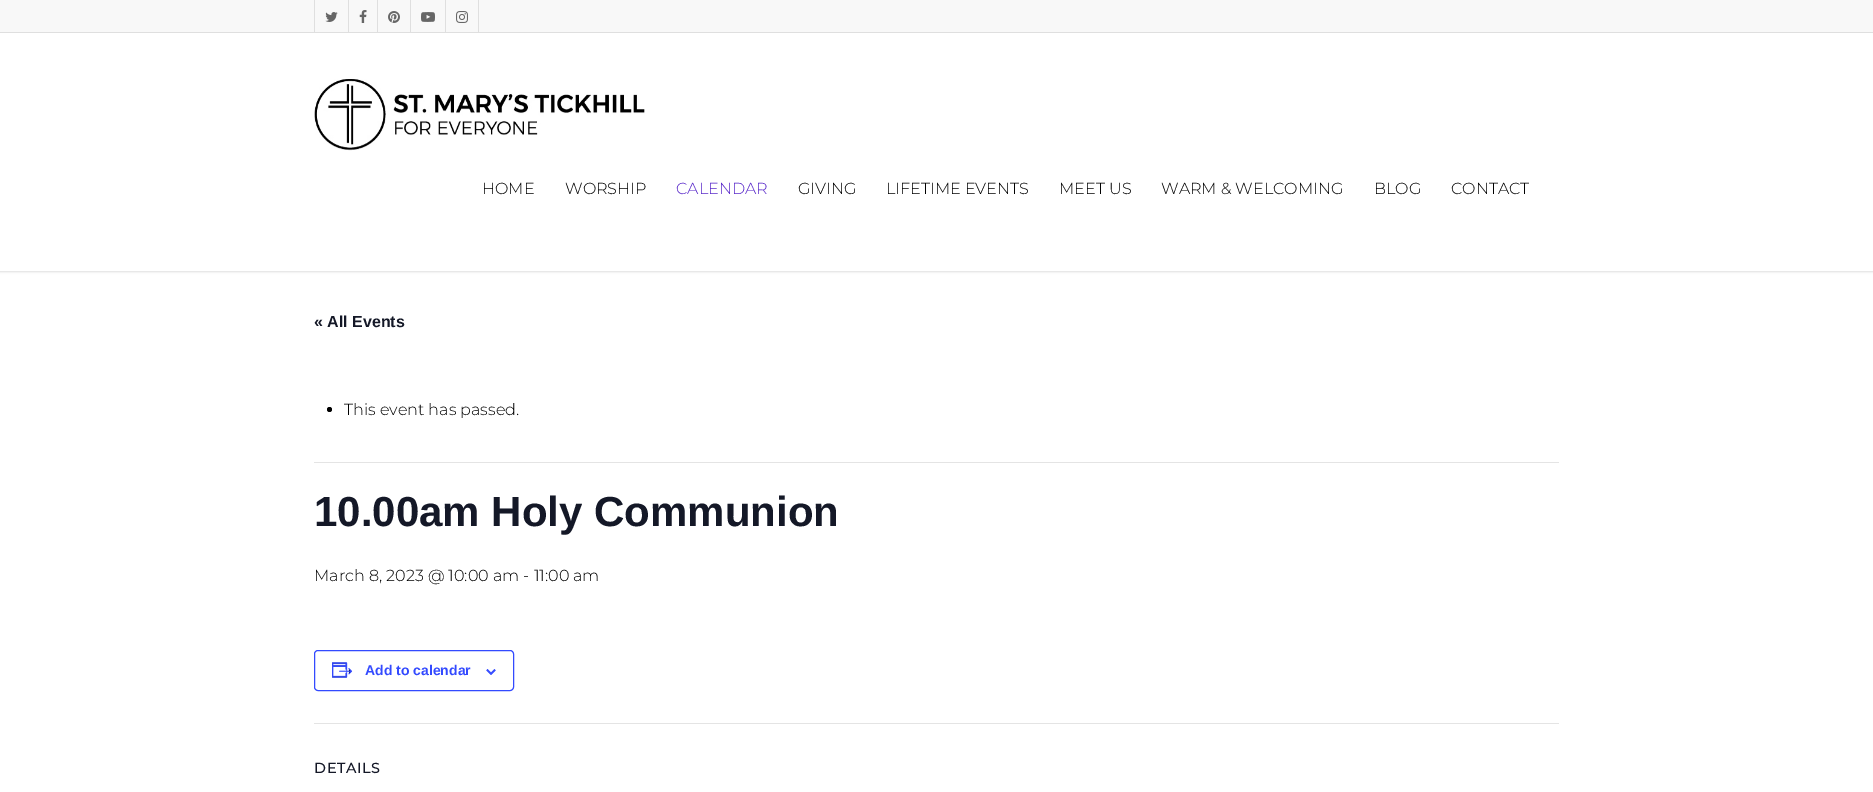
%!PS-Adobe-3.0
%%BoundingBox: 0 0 1873 792
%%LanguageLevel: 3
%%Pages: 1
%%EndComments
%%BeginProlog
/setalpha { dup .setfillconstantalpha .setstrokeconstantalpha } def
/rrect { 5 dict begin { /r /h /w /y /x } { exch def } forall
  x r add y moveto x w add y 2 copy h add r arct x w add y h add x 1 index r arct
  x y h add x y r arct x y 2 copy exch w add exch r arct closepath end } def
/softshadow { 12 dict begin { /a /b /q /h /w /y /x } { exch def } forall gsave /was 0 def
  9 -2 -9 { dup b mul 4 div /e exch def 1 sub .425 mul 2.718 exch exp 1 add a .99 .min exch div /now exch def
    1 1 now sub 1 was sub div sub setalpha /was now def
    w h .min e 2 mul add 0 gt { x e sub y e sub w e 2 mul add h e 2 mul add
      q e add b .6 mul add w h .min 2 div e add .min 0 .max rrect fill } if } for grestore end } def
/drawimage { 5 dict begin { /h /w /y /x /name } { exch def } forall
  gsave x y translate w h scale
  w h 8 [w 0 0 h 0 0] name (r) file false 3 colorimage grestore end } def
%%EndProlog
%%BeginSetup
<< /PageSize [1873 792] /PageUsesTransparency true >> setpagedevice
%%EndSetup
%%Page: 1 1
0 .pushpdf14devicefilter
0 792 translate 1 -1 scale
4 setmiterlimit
1 setgray
0 0 1873 792 rectfill
0 setgray
0 32 1873 239 0 1.5 0.22 softshadow
0.973 setgray
0 0 1873 32 rectfill
0.875 setgray
0 32 1873 1 rectfill
314 0 1 32 rectfill
(images/1.raw) 325 12 13 10 drawimage
348 0 1 32 rectfill
(images/2.raw) 359 10 8 13 drawimage
377 0 1 32 rectfill
(images/3.raw) 388 11 12 12 drawimage
410 0 1 32 rectfill
(images/4.raw) 421 12 14 10 drawimage
478 0 1 32 rectfill
445 0 1 32 rectfill
(images/5.raw) 456 11 12 12 drawimage
1 setgray
0 33 1873 238 rectfill
(images/6.raw) 314 79 331 72 drawimage
0.894 setgray
314 462 1245 1 rectfill
0 setgray
newpath 329.5 409.5 2.5 0 360 arc closepath fill
0.2 0.29 1 setrgbcolor
314.5 650.5 199 40 3.5 rrect stroke
(images/7.raw) 332 662 21 16 drawimage
(images/8.raw) 486 669 10 6 drawimage
0.894 setgray
314 723 1245 1 rectfill
/Montserrat-Light [16 0 0 -16 0 0] selectfont
0 setgray
482 194 moveto (HOME) show
565 194 moveto (WORSHIP) show
0.345 0.157 0.788 setrgbcolor
676 194 moveto (CALENDAR) show
0 setgray
798 194 moveto (GIVING) show
886 194 moveto (LIFETIME EVENTS) show
1059 194 moveto (MEET US) show
1161 194 moveto (WARM & WELCOMING) show
1374 194 moveto (BLOG) show
1451 194 moveto (CONTACT) show
/LiberationSans-Bold [16 0 0 -16 0 0] selectfont
0.078 0.094 0.153 setrgbcolor
314 327 moveto (« All Events) show
/Montserrat-Light [16 0 0 -16 0 0] selectfont
0 setgray
344 415 moveto (This event has passed.) show
/LiberationSans-Bold [42 0 0 -42 0 0] selectfont
0.078 0.094 0.153 setrgbcolor
314 526 moveto (10.00am Holy Communion) show
/Montserrat-Light [16 0 0 -16 0 0] selectfont
0 setgray
314 581 moveto (March 8, 2023 @ 10:00 am - 11:00 am) show
/LiberationSans-Bold [14 0 0 -14 0 0] selectfont
0.2 0.29 1 setrgbcolor
365 675 moveto (Add to calendar) show
/Montserrat-Bold [14 0 0 -14 0 0] selectfont
0.078 0.094 0.153 setrgbcolor
314 773 moveto 1 0 (DETAILS) ashow
.poppdf14devicefilter showpage
%%EOF
